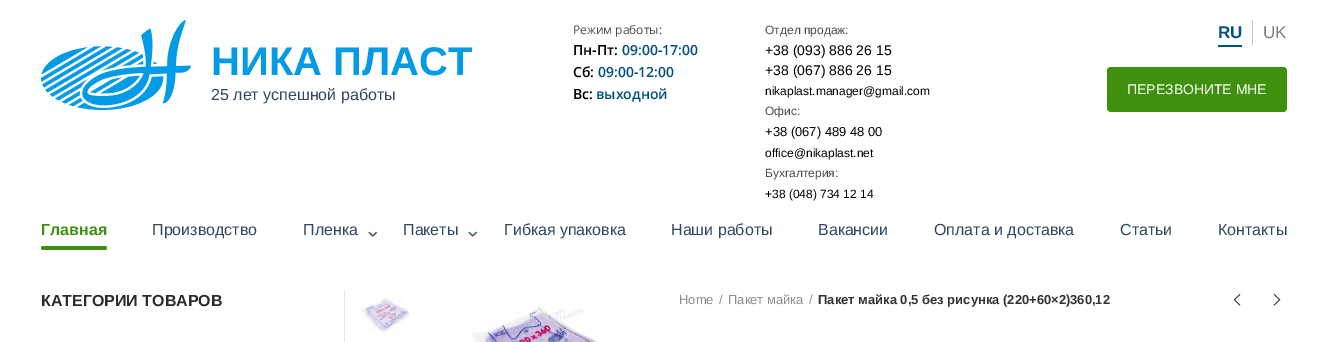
%!PS-Adobe-3.0
%%BoundingBox: 0 0 1328 342
%%LanguageLevel: 3
%%Pages: 1
%%EndComments
%%BeginProlog
/rrect { 5 dict begin { /r /h /w /y /x } { exch def } forall
  x r add y moveto x w add y 2 copy h add r arct x w add y h add x 1 index r arct
  x y h add x y r arct x y 2 copy exch w add exch r arct closepath end } def
/drawimage { 5 dict begin { /h /w /y /x /name } { exch def } forall
  gsave x y translate w h scale
  w h 8 [w 0 0 h 0 0] name (r) file false 3 colorimage grestore end } def
%%EndProlog
%%BeginSetup
<< /PageSize [1328 342] >> setpagedevice
%%EndSetup
%%Page: 1 1
0 342 translate 1 -1 scale
4 setmiterlimit
1 setgray
0 0 1328 342 rectfill
(images/1.raw) 41 20 150 90 drawimage
0 0.318 0.486 setrgbcolor
1218 45 24 2 rectfill
0.769 setgray
1252 20 1 25 rectfill
0.247 0.565 0.051 setrgbcolor
1107 67 180 45 4 rrect fill
41 246 66 4 2 rrect fill
(images/2.raw) 368 231 10 6 drawimage
(images/2.raw) 468 231 10 6 drawimage
0.902 setgray
344 290 1 52 rectfill
(images/3.raw) 361 297 48 37 drawimage
(images/4.raw) 472 305 125 37 drawimage
(images/5.raw) 1233 293 8 13 drawimage
(images/6.raw) 1273 293 8 13 drawimage
/LiberationSans-Bold [40 0 0 -40 0 0] selectfont
0.012 0.608 0.898 setrgbcolor
211 75 moveto (НИКА ПЛАСТ) show
/LiberationSans-Regular [16 0 0 -16 0 0] selectfont
0.192 0.282 0.392 setrgbcolor
211 100 moveto (25 лет успешной работы) show
/OpenSans-Regular [12 0 0 -12 0 0] selectfont
0.29 setgray
573 34 moveto (Режим работы:) show
/OpenSans-SemiBold [14 0 0 -14 0 0] selectfont
0 setgray
573 55 moveto (Пн-Пт:) show
0 0.318 0.486 setrgbcolor
622 55 moveto (09:00-17:00) show
0 setgray
573 77 moveto (Сб:) show
0 0.318 0.486 setrgbcolor
598 77 moveto (09:00-12:00) show
0 setgray
573 99 moveto (Вс:) show
0 0.318 0.486 setrgbcolor
596 99 moveto (выходной) show
/LiberationSans-Regular [12 0 0 -12 0 0] selectfont
0.29 setgray
765 34 moveto (Отдел продаж:) show
/LiberationSans-Regular [14 0 0 -14 0 0] selectfont
0 setgray
765 55 moveto (+38 \(093\) 886 26 15) show
765 75 moveto (+38 \(067\) 886 26 15) show
/LiberationSans-Regular [12 0 0 -12 0 0] selectfont
765 95 moveto (nikaplast.manager@gmail.com) show
0.29 setgray
765 115 moveto (Офис:) show
/LiberationSans-Regular [13 0 0 -13 0 0] selectfont
0 setgray
765 136 moveto (+38 \(067\) 489 48 00) show
/LiberationSans-Regular [12 0 0 -12 0 0] selectfont
765 157 moveto (office@nikaplast.net) show
0.29 setgray
765 177 moveto (Бухгалтерия:) show
0 setgray
765 198 moveto (+38 \(048\) 734 12 14) show
/LiberationSans-Bold [17 0 0 -17 0 0] selectfont
0 0.318 0.486 setrgbcolor
1218 38 moveto (RU) show
/LiberationSans-Regular [17 0 0 -17 0 0] selectfont
0.49 setgray
1263 38 moveto (UK) show
/LiberationSans-Regular [14 0 0 -14 0 0] selectfont
1 setgray
1127 94 moveto (ПЕРЕЗВОНИТЕ МНЕ) show
/LiberationSans-Bold [16 0 0 -16 0 0] selectfont
0.247 0.565 0.051 setrgbcolor
41 235 moveto (Главная) show
/LiberationSans-Regular [16 0 0 -16 0 0] selectfont
0.192 0.282 0.392 setrgbcolor
152 235 moveto (Производство) show
303 235 moveto (Пленка) show
403 235 moveto (Пакеты) show
504 235 moveto (Гибкая упаковка) show
671 235 moveto (Наши работы) show
818 235 moveto (Вакансии) show
934 235 moveto (Оплата и доставка) show
1120 235 moveto (Статьи) show
1218 235 moveto (Контакты) show
/LiberationSans-Bold [16 0 0 -16 0 0] selectfont
0.176 0.165 0.165 setrgbcolor
41 306 moveto (КАТЕГОРИИ ТОВАРОВ) show
/LiberationSans-Regular [13 0 0 -13 0 0] selectfont
0.557 setgray
679 304 moveto (Home) show
719 304 moveto (/) show
728 304 moveto (Пакет майка) show
809 304 moveto (/) show
/LiberationSans-Bold [13 0 0 -13 0 0] selectfont
0.2 setgray
818 304 moveto (Пакет майка 0,5 без рисунка \(220+60×2\)360,12) show
showpage
%%EOF
